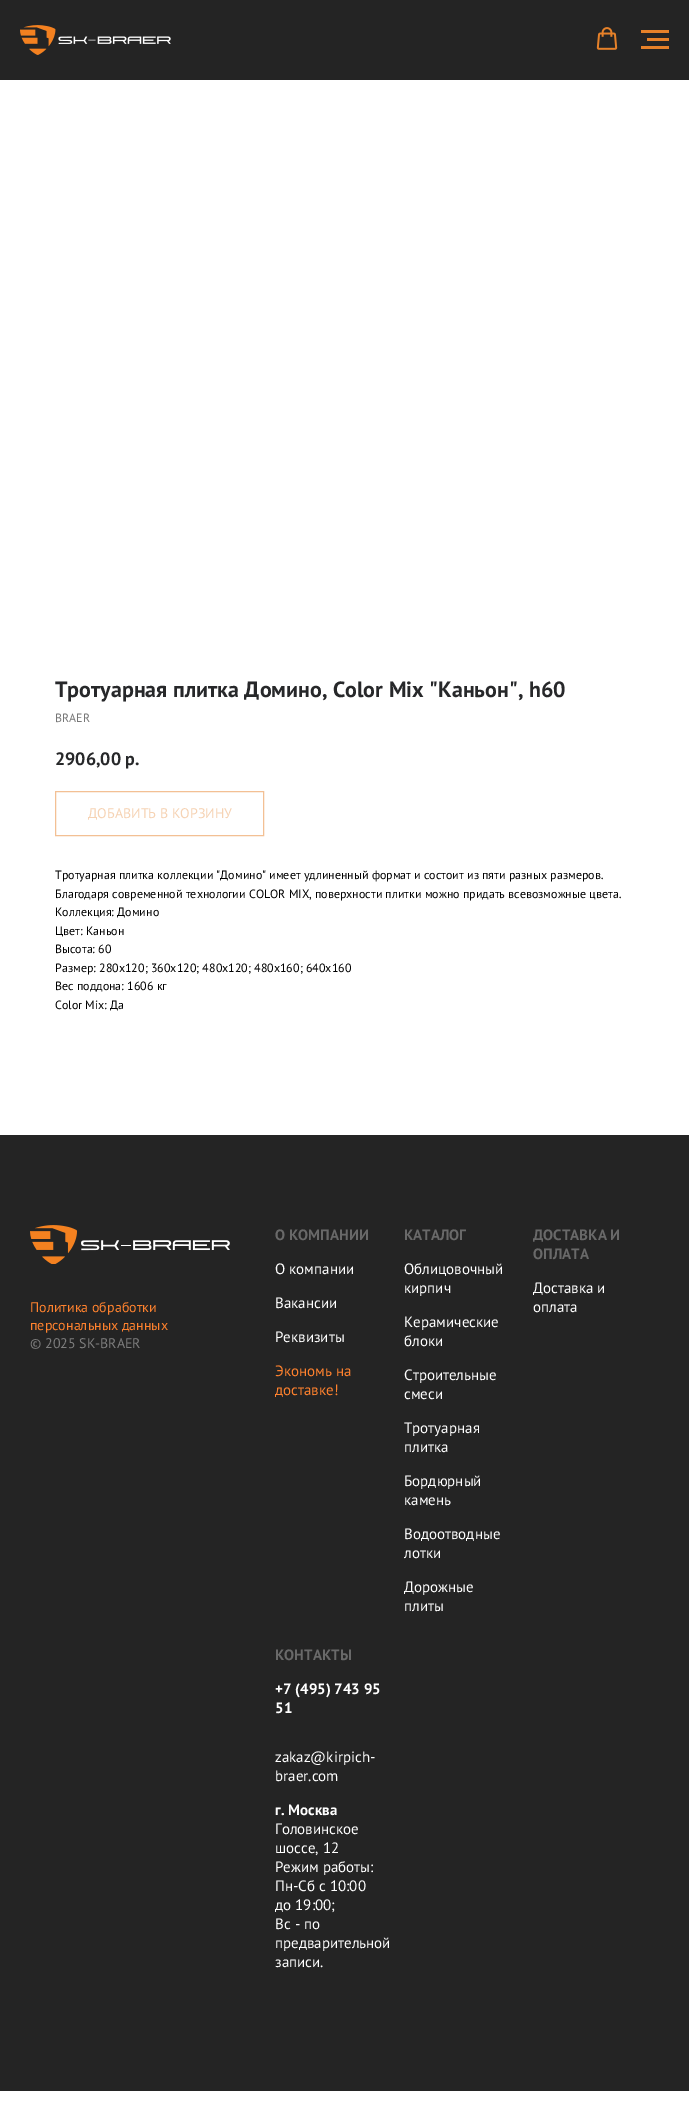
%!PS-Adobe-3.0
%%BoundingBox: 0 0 689 2120
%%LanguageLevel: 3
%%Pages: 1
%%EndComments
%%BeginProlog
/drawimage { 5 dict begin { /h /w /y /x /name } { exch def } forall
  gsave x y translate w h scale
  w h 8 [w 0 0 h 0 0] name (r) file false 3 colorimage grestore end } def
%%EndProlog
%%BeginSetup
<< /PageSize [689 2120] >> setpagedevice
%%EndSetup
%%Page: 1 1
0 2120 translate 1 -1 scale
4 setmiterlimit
1 setgray
0 0 689 2120 rectfill
0.141 setgray
0 0 689 80 rectfill
(images/1.raw) 20 25 151 30 drawimage
(images/2.raw) 596 27 22 23 drawimage
0.902 0.506 0.161 setrgbcolor
641 30 28 3 rectfill
647 38 22 3 rectfill
641 46 28 3 rectfill
0.953 0.753 0.58 setrgbcolor
55.5 791.5 208 44 rectstroke
0.141 setgray
0 1135 689 956 rectfill
(images/3.raw) 30 1225 200 39 drawimage
/PTSans-Bold [22 0 0 -22 0 0] selectfont
0.153 0.157 0.165 setrgbcolor
55 697 moveto (Тротуарная плитка Домино, Color Mix "Каньон", h60) show
/PTSans-Regular [12 0 0 -12 0 0] selectfont
0.467 setgray
55 722 moveto (BRAER) show
/PTSans-Bold [18 0 0 -18 0 0] selectfont
0.153 0.157 0.165 setrgbcolor
55 765 moveto (2906,00) show
125 765 moveto (р.) show
/PTSans-Regular [14 0 0 -14 0 0] selectfont
0.965 0.827 0.706 setrgbcolor
88 818 moveto (ДОБАВИТЬ В КОРЗИНУ) show
/PTSans-Regular [12 0 0 -12 0 0] selectfont
0 setgray
55 879 moveto (Тротуарная плитка коллекции "Домино" имеет удлиненный формат и состоит из пяти разных размеров.) show
55 898 moveto (Благодаря современной технологии COLOR MIX, поверхности плитки можно придать всевозможные цвета.) show
55 916 moveto (Коллекция: Домино) show
55 935 moveto (Цвет: Каньон) show
55 953 moveto (Высота: 60) show
55 972 moveto (Размер: 280х120; 360х120; 480х120; 480х160; 640х160) show
55 990 moveto (Вес поддона: 1606 кг) show
55 1009 moveto (Color Mix: Да) show
/PTSans-Regular [14 0 0 -14 0 0] selectfont
1 0.51 0.18 setrgbcolor
30 1312 moveto (Политика обработки) show
30 1330 moveto (персональных данных) show
0.49 setgray
30 1348 moveto (© 2025 SK-BRAER) show
/PTSans-Bold [15 0 0 -15 0 0] selectfont
0.412 setgray
275 1240 moveto (О КОМПАНИИ) show
/PTSans-Regular [15 0 0 -15 0 0] selectfont
1 setgray
275 1274 moveto (О компании) show
275 1308 moveto (Вакансии) show
275 1342 moveto (Реквизиты) show
1 0.51 0.18 setrgbcolor
275 1376 moveto (Экономь на) show
275 1395 moveto (доставке!) show
/PTSans-Bold [15 0 0 -15 0 0] selectfont
0.412 setgray
404 1240 moveto (КАТАЛОГ) show
/PTSans-Regular [15 0 0 -15 0 0] selectfont
1 setgray
404 1274 moveto (Облицовочный) show
404 1293 moveto (кирпич) show
404 1327 moveto (Керамические) show
404 1346 moveto (блоки) show
404 1380 moveto (Строительные) show
404 1399 moveto (смеси) show
404 1433 moveto (Тротуарная) show
404 1452 moveto (плитка) show
404 1486 moveto (Бордюрный) show
404 1505 moveto (камень) show
404 1539 moveto (Водоотводные) show
404 1558 moveto (лотки) show
404 1592 moveto (Дорожные) show
404 1611 moveto (плиты) show
/PTSans-Bold [15 0 0 -15 0 0] selectfont
0.412 setgray
533 1240 moveto (ДОСТАВКА И) show
533 1259 moveto (ОПЛАТА) show
/PTSans-Regular [15 0 0 -15 0 0] selectfont
1 setgray
533 1293 moveto (Доставка и) show
533 1312 moveto (оплата) show
/PTSans-Bold [15 0 0 -15 0 0] selectfont
0.412 setgray
275 1660 moveto (КОНТАКТЫ) show
1 setgray
275 1694 moveto (+7 \(495\) 743 95) show
275 1713 moveto (51) show
/PTSans-Regular [15 0 0 -15 0 0] selectfont
275 1762 moveto (zakaz@kirpich-) show
275 1781 moveto (braer.com) show
/PTSans-Bold [15 0 0 -15 0 0] selectfont
275 1815 moveto (г. Москва) show
/PTSans-Regular [15 0 0 -15 0 0] selectfont
275 1834 moveto (Головинское) show
275 1853 moveto (шоссе, 12) show
275 1872 moveto (Режим работы:) show
275 1891 moveto (Пн-Сб с 10:00) show
275 1910 moveto (до 19:00;) show
275 1929 moveto (Вс - по) show
275 1948 moveto (предварительной) show
275 1967 moveto (записи.) show
showpage
%%EOF
